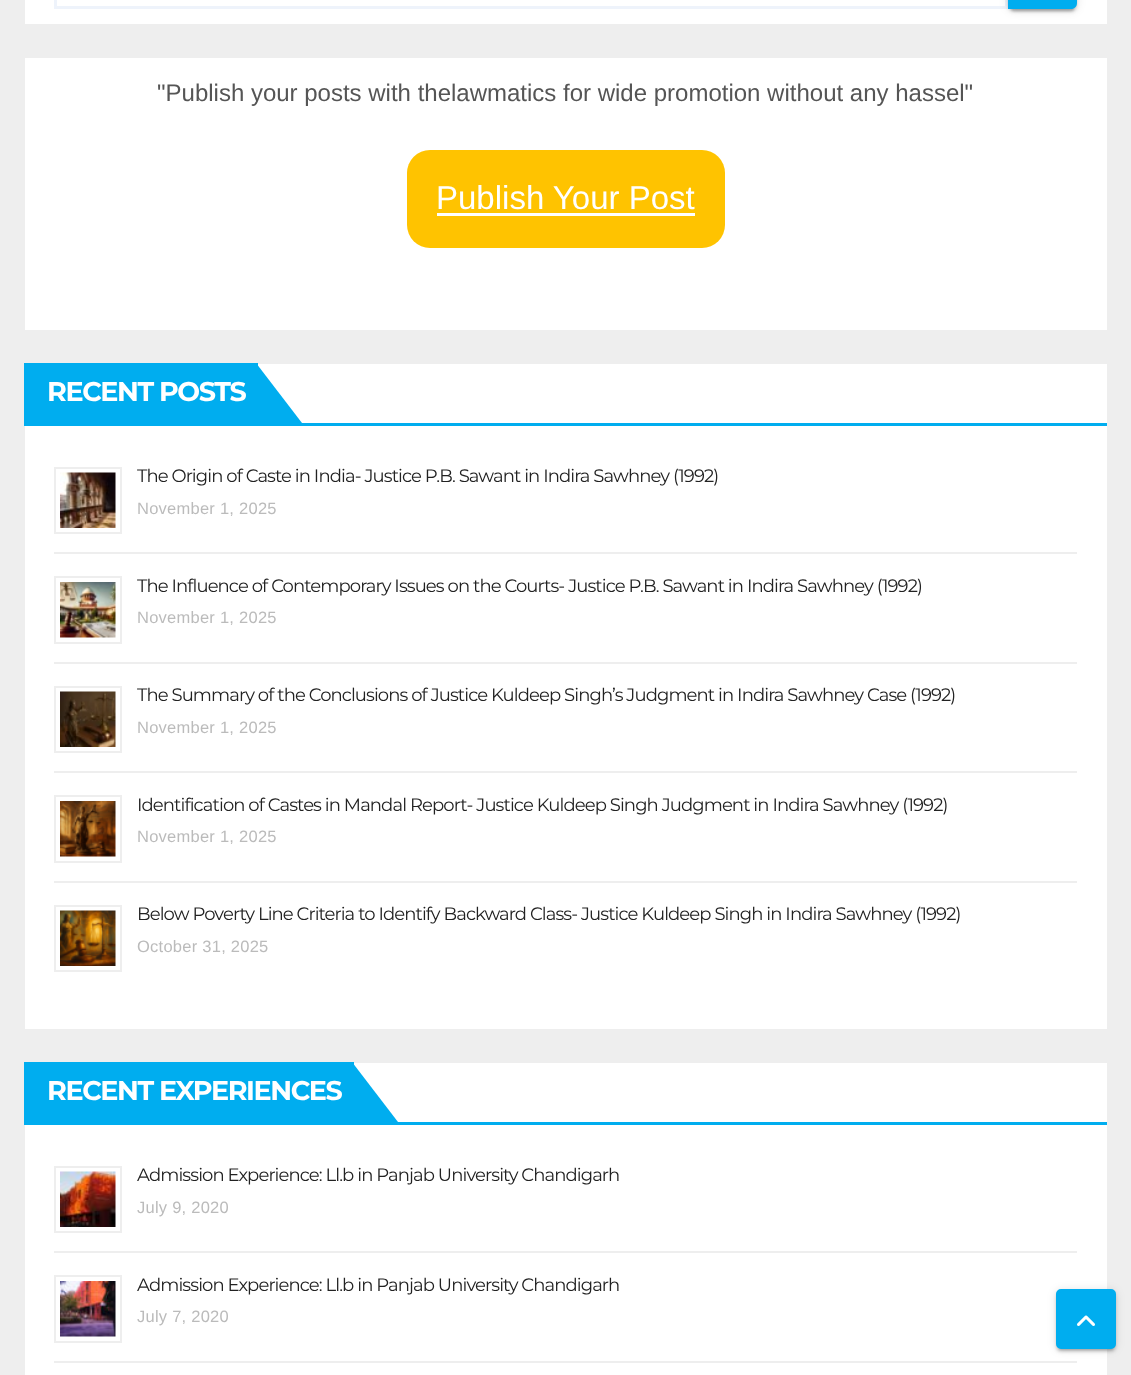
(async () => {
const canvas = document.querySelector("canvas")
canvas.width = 1131
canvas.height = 1375
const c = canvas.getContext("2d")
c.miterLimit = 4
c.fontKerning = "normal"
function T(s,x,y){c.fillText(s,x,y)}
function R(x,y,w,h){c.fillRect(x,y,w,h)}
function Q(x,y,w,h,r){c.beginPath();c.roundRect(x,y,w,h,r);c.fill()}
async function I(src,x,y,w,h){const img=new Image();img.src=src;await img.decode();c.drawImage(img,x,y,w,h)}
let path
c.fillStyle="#eee"
R(0,0,1131,1375)
c.fillStyle="#fff"
R(25,0,1082,24)
c.strokeStyle="#eef3fb"
c.lineWidth=3
c.strokeRect(55.5,-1.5,951,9)
c.fillStyle="#0000001f"
c.filter="blur(4px)"
c.beginPath()
c.roundRect(1008,-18,69,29,6)
c.fill()
c.filter="none"
c.fillStyle="#00000033"
c.filter="blur(1px)"
c.beginPath()
c.roundRect(1011,-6,63,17,3)
c.fill()
c.filter="none"
c.fillStyle="#00000024"
c.filter="blur(1.5px)"
c.beginPath()
c.roundRect(1008,-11,69,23,6)
c.fill()
c.filter="none"
c.fillStyle="#00adef"
path = new Path2D("M1008-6h63c3.5 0 6 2.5 6 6v3c0 3.5-2.5 6-6 6h-63z")
c.fill(path)
c.fillStyle="#fff"
R(25,58,1082,272)
c.font="24px Liberation Sans"
c.fillStyle="#555"
T("\"Publish your posts with thelawmatics for wide promotion without any hassel\"",157,101)
c.fillStyle="#ffc300"
Q(407,150,318,98,23)
c.font="33px Liberation Sans"
c.fillStyle="#fff"
T("Publish Your Post",436,209)
R(437,213,258,3)
R(25,364,1082,665)
c.fillStyle="#00adef"
R(24,423,1083,3)
R(24,363,234,60)
c.letterSpacing="-1.4px"
c.font="bold 27px Montserrat"
c.fillStyle="#fff"
T("RECENT POSTS",47,401)
c.fillStyle="#00adef"
path = new Path2D("M256 423v-60l46 60z")
c.fill(path)
c.fillStyle="#eee"
R(54,552,1023,2)
c.strokeStyle="#eee"
c.lineWidth=2
c.strokeRect(55,468,66,65)
await I("1.png",60,472,56,56)
c.letterSpacing="-0.9px"
c.font="18px Montserrat"
c.fillStyle="#222"
T("The Origin of Caste in India- Justice P.B. Sawant in Indira Sawhney (1992)",137,482)
c.letterSpacing="0.25px"
c.font="16.5px Liberation Sans"
c.fillStyle="#bbb"
T("November 1, 2025",137,514)
c.fillStyle="#eee"
R(54,662,1023,2)
c.strokeRect(55,577,66,66)
await I("2.png",60,582,56,56)
c.letterSpacing="-0.9px"
c.font="18px Montserrat"
c.fillStyle="#222"
T("The Influence of Contemporary Issues on the Courts- Justice P.B. Sawant in Indira Sawhney (1992)",137,592)
c.letterSpacing="0.25px"
c.font="16.5px Liberation Sans"
c.fillStyle="#bbb"
T("November 1, 2025",137,623)
c.fillStyle="#eee"
R(54,771,1023,2)
c.strokeRect(55,687,66,65)
await I("3.png",60,691,56,56)
c.letterSpacing="-0.9px"
c.font="18px Montserrat"
c.fillStyle="#222"
T("The Summary of the Conclusions of Justice Kuldeep Singh’s Judgment in Indira Sawhney Case (1992)",137,701)
c.letterSpacing="0.25px"
c.font="16.5px Liberation Sans"
c.fillStyle="#bbb"
T("November 1, 2025",137,733)
c.fillStyle="#eee"
R(54,881,1023,2)
c.strokeRect(55,796,66,66)
await I("4.png",60,801,56,56)
c.letterSpacing="-0.9px"
c.font="18px Montserrat"
c.fillStyle="#222"
T("Identification of Castes in Mandal Report- Justice Kuldeep Singh Judgment in Indira Sawhney (1992)",137,811)
c.letterSpacing="0.25px"
c.font="16.5px Liberation Sans"
c.fillStyle="#bbb"
T("November 1, 2025",137,842)
c.strokeRect(55,906,66,65)
await I("5.png",60,910,56,56)
c.letterSpacing="-0.9px"
c.font="18px Montserrat"
c.fillStyle="#222"
T("Below Poverty Line Criteria to Identify Backward Class- Justice Kuldeep Singh in Indira Sawhney (1992)",137,920)
c.letterSpacing="0.25px"
c.font="16.5px Liberation Sans"
c.fillStyle="#bbb"
T("October 31, 2025",137,952)
c.fillStyle="#fff"
R(25,1063,1082,312)
c.fillStyle="#00adef"
R(24,1122,1083,3)
R(24,1062,330,60)
c.letterSpacing="-1.4px"
c.font="bold 27px Montserrat"
c.fillStyle="#fff"
T("RECENT EXPERIENCES",47,1100)
c.fillStyle="#00adef"
path = new Path2D("M352 1122v-60l46 60z")
c.fill(path)
c.fillStyle="#eee"
R(54,1251,1023,2)
c.strokeRect(55,1167,66,65)
await I("6.png",60,1171,56,56)
c.letterSpacing="-0.9px"
c.font="18px Montserrat"
c.fillStyle="#222"
T("Admission Experience: Ll.b in Panjab University Chandigarh",137,1181)
c.letterSpacing="0.25px"
c.font="16.5px Liberation Sans"
c.fillStyle="#bbb"
T("July 9, 2020",137,1213)
c.fillStyle="#eee"
R(54,1361,1023,2)
c.strokeRect(55,1276,66,66)
await I("7.png",60,1281,56,56)
c.letterSpacing="-0.9px"
c.font="18px Montserrat"
c.fillStyle="#222"
T("Admission Experience: Ll.b in Panjab University Chandigarh",137,1291)
c.letterSpacing="0.25px"
c.font="16.5px Liberation Sans"
c.fillStyle="#bbb"
T("July 7, 2020",137,1322)
c.fillStyle="#0000001f"
c.filter="blur(4px)"
c.beginPath()
c.roundRect(1056,1290,60,60,5)
c.fill()
c.filter="none"
c.fillStyle="#00000033"
c.filter="blur(1px)"
c.beginPath()
c.roundRect(1059,1296,54,54,1.5)
c.fill()
c.filter="none"
c.fillStyle="#00000024"
c.filter="blur(1.5px)"
c.beginPath()
c.roundRect(1056,1292,60,60,5)
c.fill()
c.filter="none"
c.fillStyle="#00adef"
c.beginPath()
c.roundRect(1057.5,1290.5,57,57,3.5)
c.fill()
c.strokeStyle="#00adef"
c.lineWidth=3
c.stroke()
await I("8.png",1077,1315,18,11)
})()
